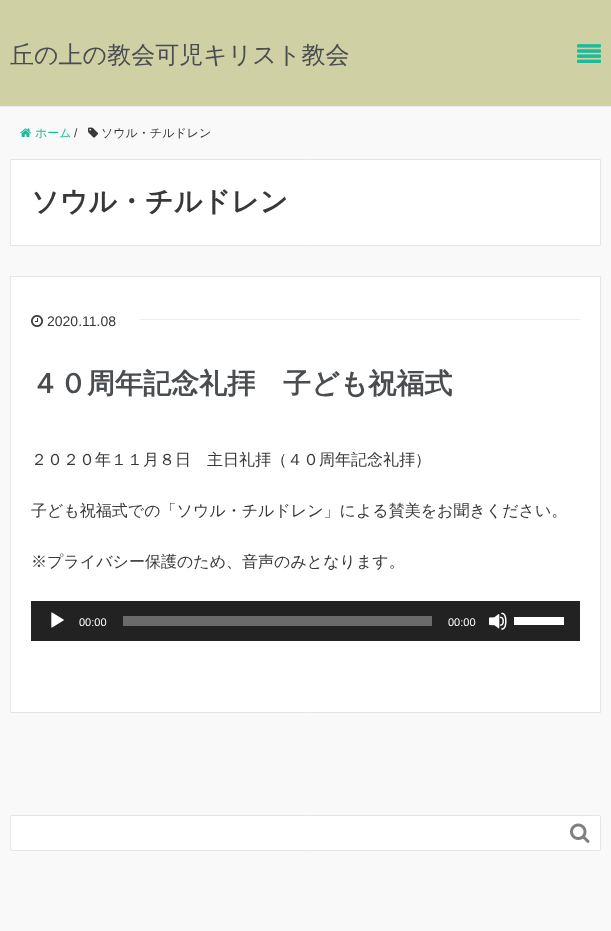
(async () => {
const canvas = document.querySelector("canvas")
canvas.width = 611
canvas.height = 931
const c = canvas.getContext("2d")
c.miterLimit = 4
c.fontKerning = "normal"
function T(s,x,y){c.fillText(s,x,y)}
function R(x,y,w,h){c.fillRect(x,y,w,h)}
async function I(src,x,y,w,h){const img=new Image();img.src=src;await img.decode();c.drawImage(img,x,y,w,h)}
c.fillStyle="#f9f9f9"
R(0,0,611,931)
c.fillStyle="#cfd1a4"
R(0,0,611,106)
c.fillStyle="#ededed"
R(0,106,611,1)
c.font="500 24px WenQuanYi Zen Hei"
c.fillStyle="#494d50"
T("丘の上の教会可児キリスト教会",10,63)
await I("1.png",577,44,24,19)
await I("2.png",20,128,11,9)
c.font="500 12px WenQuanYi Zen Hei"
c.fillStyle="#1abb9a"
T("ホーム",35,137)
c.font="12px Liberation Sans"
c.fillStyle="#383838"
T("/",74,137)
await I("3.png",88,127,11,11)
c.font="500 12px WenQuanYi Zen Hei"
T("ソウル・チルドレン",101,137)
c.fillStyle="#fff"
c.beginPath()
c.rect(10.5,159.5,590,86)
c.fill()
c.strokeStyle="#e5e5e5"
c.stroke()
c.font="bold 28px WenQuanYi Zen Hei"
c.fillStyle="#383838"
T("ソウル・チルドレン",31,211)
c.fillStyle="#fff"
c.beginPath()
c.rect(10.5,276.5,590,436)
c.fill()
c.stroke()
c.fillStyle="#ededed"
R(140,319,440,1)
await I("4.png",31,315,12,12)
c.font="14px Liberation Sans"
c.fillStyle="#383838"
T("2020.11.08",47,326)
c.font="bold 28px WenQuanYi Zen Hei"
c.fillStyle="#494d50"
T("４０周年記念礼拝　子ども祝福式",31,393)
c.font="500 16px WenQuanYi Zen Hei"
c.fillStyle="#383838"
T("２０２０年１１月８日　主日礼拝（４０周年記念礼拝）",31,465)
T("子ども祝福式での「ソウル・チルドレン」による賛美をお聞きください。",31,516)
T("※プライバシー保護のため、音声のみとなります。",31,567)
c.fillStyle="#222"
R(31,601,549,40)
await I("5.png",51,612,13,16)
c.font="11px Liberation Sans"
c.fillStyle="#fff"
T("00:00",79,626)
c.fillStyle="#6b6b6b"
R(123,616,309,10)
c.fillStyle="#fff"
T("00:00",448,626)
await I("6.png",489,612,18,18)
R(514,617,50,8)
c.beginPath()
c.roundRect(10.5,815.5,590,35,1.5)
c.fill()
c.stroke()
await I("7.png",570,823,20,20)
})()
